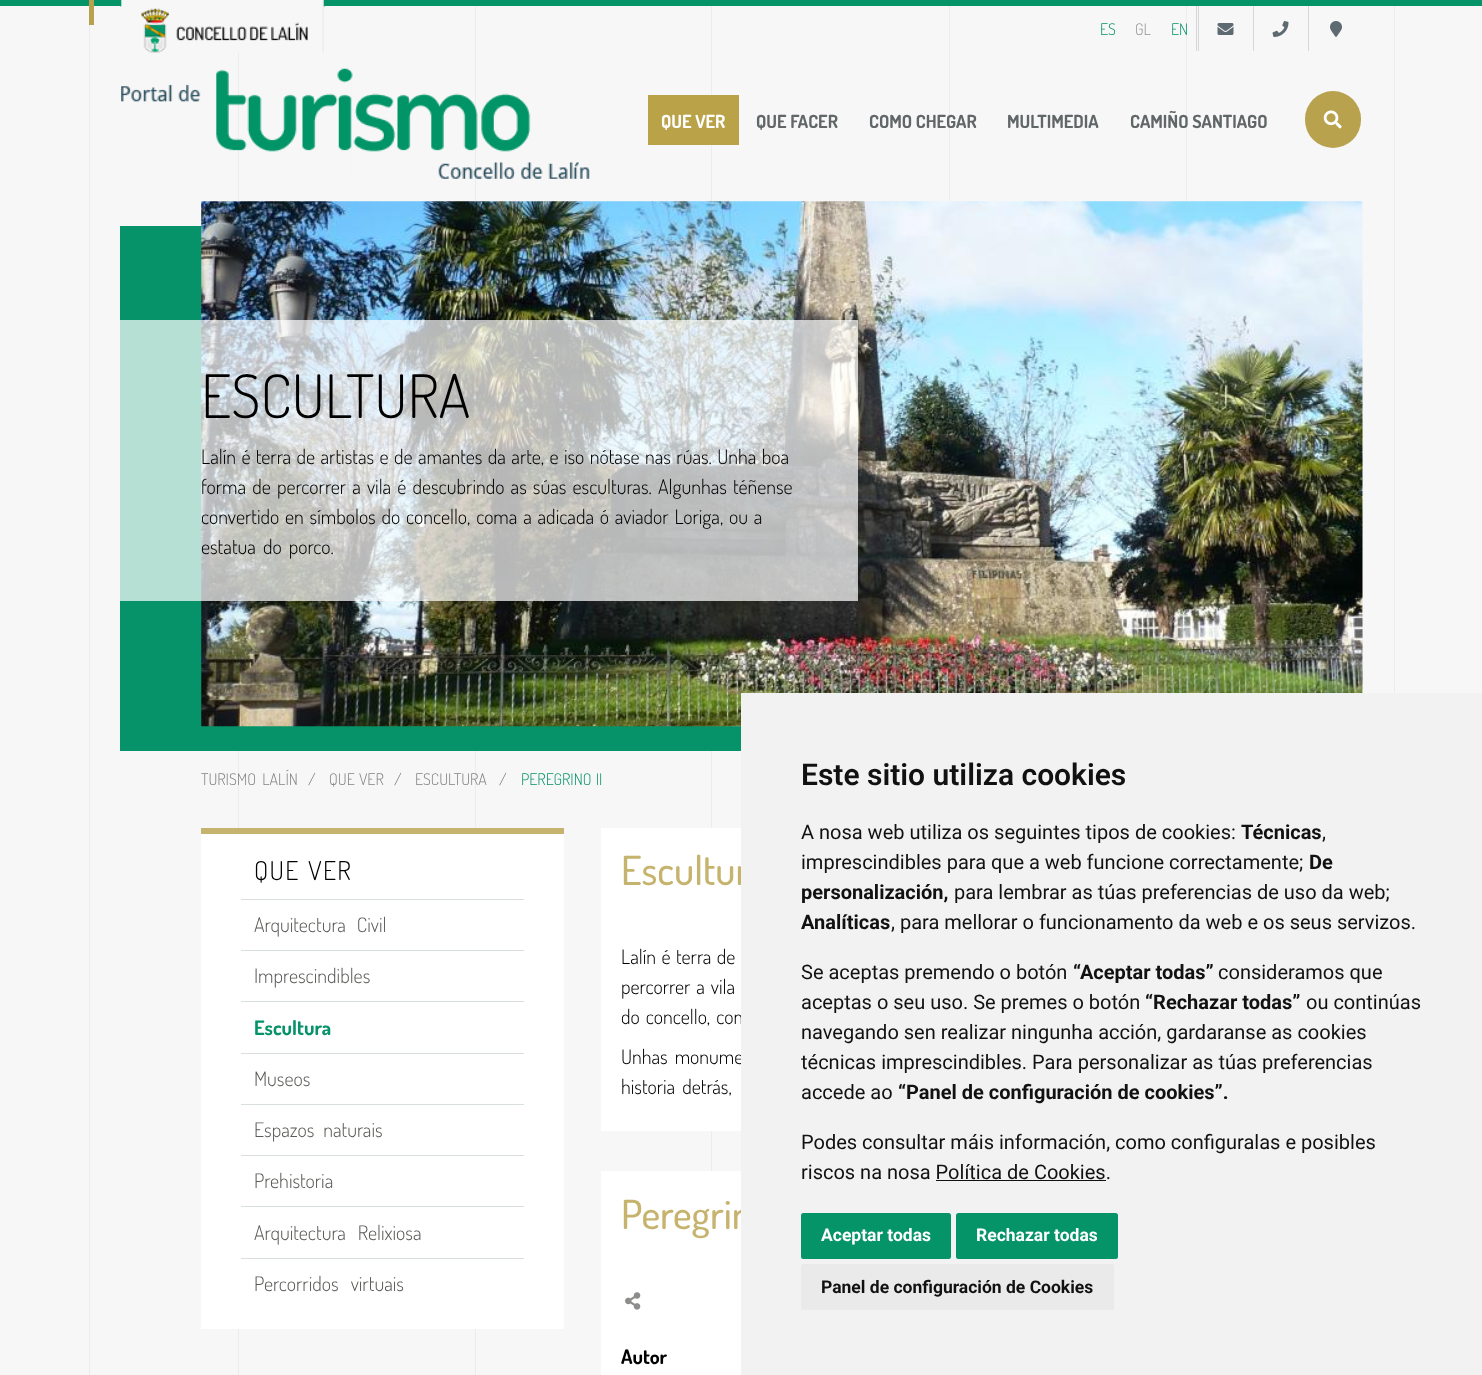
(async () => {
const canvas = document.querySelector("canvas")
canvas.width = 1482
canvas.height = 1375
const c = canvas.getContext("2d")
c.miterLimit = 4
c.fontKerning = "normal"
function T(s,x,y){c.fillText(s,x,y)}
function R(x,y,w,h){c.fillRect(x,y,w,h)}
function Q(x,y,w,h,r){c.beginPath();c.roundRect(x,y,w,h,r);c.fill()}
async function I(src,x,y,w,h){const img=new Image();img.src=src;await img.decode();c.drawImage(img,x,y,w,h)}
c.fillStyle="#f7f7f7"
R(0,0,1482,1375)
c.fillStyle="#ececec"
R(475,0,1,1375)
R(711,0,1,1171)
R(949,0,1,202)
R(1186,0,1,202)
R(1394,0,1,693)
c.fillStyle="#059368"
R(0,0,1482,6)
c.fillStyle="#b8a24d"
R(89,0,5,25)
c.fillStyle="#ececec"
R(89,25,1,1350)
R(238,52,1,1323)
await I("1.png",120,0,205,53)
c.fillStyle="#d6d6d6"
R(1196,6,1,45)
c.font="300 16px Dosis"
c.fillStyle="#069369"
T("ES",1100,35)
c.fillStyle="#949494"
T("GL",1135,35)
c.fillStyle="#069369"
T("EN",1171,35)
c.fillStyle="#d5d7da"
R(1198,6,1,45)
await I("2.png",1217,23,17,12)
R(1253,6,1,45)
await I("3.png",1272,21,17,16)
R(1308,6,1,45)
await I("4.png",1330,21,12,16)
await I("5.png",121,68,469,111)
c.fillStyle="#baa248"
R(648,95,91,50)
c.font="bold 18px Dosis"
c.fillStyle="#fff"
T("QUE VER",661,128)
c.fillStyle="#616768"
T("QUE FACER",756,128)
T("COMO CHEGAR",869,128)
T("MULTIMEDIA",1007,128)
T("CAMIÑO SANTIAGO",1130,128)
c.fillStyle="#b8a24d"
Q(1305,91,56,57,28)
await I("6.png",1323,110,19,19)
c.fillStyle="#069369"
R(120,226,621,525)
await I("7.png",201,201,1162,526)
c.fillStyle="#ffffffb5"
R(120,320,738,281)
c.font="300 60px Dosis"
c.fillStyle="#000"
T("ESCULTURA",201,418)
c.wordSpacing="1.4px"
c.font="300 20px Dosis"
T("Lalín é terra de artistas e de amantes da arte, e iso nótase nas rúas. Unha boa",201,464)
c.wordSpacing="2.1px"
T("forma de percorrer a vila é descubrindo as súas esculturas. Algunhas téñense",201,494)
c.wordSpacing="1.75px"
T("convertido en símbolos do concello, coma a adicada ó aviador Loriga, ou a",201,524)
c.wordSpacing="3px"
T("estatua do porco.",201,554)
c.font="300 16px Dosis"
c.fillStyle="#838383"
T("TURISMO LALÍN",201,785)
c.wordSpacing="0px"
c.fillStyle="#6c757d"
T("/",308,785)
c.wordSpacing="1px"
c.fillStyle="#838383"
T("QUE VER",329,785)
c.wordSpacing="0px"
c.fillStyle="#6c757d"
T("/",394,785)
c.fillStyle="#838383"
T("ESCULTURA",415,785)
c.fillStyle="#6c757d"
T("/",499,785)
c.wordSpacing="1px"
c.fillStyle="#069369"
T("PEREGRINO II",521,785)
c.fillStyle="#fff"
R(201,834,363,495)
c.fillStyle="#c6b36e"
R(201,828,363,6)
c.fillStyle="#d9dee1"
R(241,899,283,1)
c.letterSpacing="1.25px"
c.wordSpacing="2px"
c.font="300 26px Dosis"
c.fillStyle="#000"
T("QUE VER",254,880)
c.fillStyle="#d9dee1"
R(241,950,283,1)
c.letterSpacing="0px"
c.wordSpacing="7px"
c.font="300 20px Dosis"
c.fillStyle="#5a5a57"
T("Arquitectura Civil",254,932)
c.fillStyle="#d9dee1"
R(241,1001,283,1)
c.wordSpacing="0px"
c.fillStyle="#5a5a57"
T("Imprescindibles",254,983)
c.fillStyle="#d9dee1"
R(241,1053,283,1)
c.font="bold 20px Dosis"
c.fillStyle="#069369"
T("Escultura",254,1035)
c.fillStyle="#d9dee1"
R(241,1104,283,1)
c.font="300 20px Dosis"
c.fillStyle="#5a5a57"
T("Museos",254,1086)
c.fillStyle="#d9dee1"
R(241,1155,283,1)
c.wordSpacing="5px"
c.fillStyle="#5a5a57"
T("Espazos naturais",254,1137)
c.fillStyle="#d9dee1"
R(241,1206,283,1)
c.wordSpacing="0px"
c.fillStyle="#5a5a57"
T("Prehistoria",254,1188)
c.fillStyle="#d9dee1"
R(241,1258,283,1)
c.wordSpacing="8px"
c.fillStyle="#5a5a57"
T("Arquitectura Relixiosa",254,1240)
T("Percorridos virtuais",254,1291)
c.fillStyle="#fff"
R(601,828,140,303)
c.wordSpacing="0px"
c.font="500 40px Dosis"
c.fillStyle="#c6b36e"
T("Escultur",621,885)
c.wordSpacing="1.5px"
c.font="300 20px Dosis"
c.fillStyle="#000"
T("Lalín é terra de",621,964)
c.wordSpacing="2px"
T("percorrer a vila",621,994)
T("do concello, com",621,1024)
c.wordSpacing="3px"
T("Unhas monume",621,1064)
T("historia detrás,",621,1094)
c.fillStyle="#fff"
R(601,1171,140,204)
c.wordSpacing="0px"
c.font="500 40px Dosis"
c.fillStyle="#c6b36e"
T("Peregrin",621,1229)
await I("8.png",625,1292,16,18)
c.font="bold 20px Dosis"
c.fillStyle="#000"
T("Autor",621,1364)
c.fillStyle="#f2f2f2"
R(741,693,741,682)
c.font="600 30px Roboto"
c.fillStyle="#111"
T("Este sitio utiliza cookies",801,785)
c.font="20px Roboto"
T("A nosa web utiliza os seguintes tipos de cookies:",801,839)
c.font="bold 20px Roboto"
T("Técnicas",1241,839)
c.font="20px Roboto"
T(",",1322,839)
T("imprescindibles para que a web funcione correctamente;",801,869)
c.font="bold 20px Roboto"
T("De",1309,869)
T("personalización,",801,899)
c.font="20px Roboto"
T("para lembrar as túas preferencias de uso da web;",954,899)
c.font="bold 20px Roboto"
T("Analíticas",801,929)
c.font="20px Roboto"
T(", para mellorar o funcionamento da web e os seus servizos.",891,929)
T("Se aceptas premendo o botón",801,979)
c.font="bold 20px Roboto"
T("“Aceptar todas”",1073,979)
c.font="20px Roboto"
T("consideramos que",1218,979)
T("aceptas o seu uso. Se premes o botón",801,1009)
c.font="bold 20px Roboto"
T("“Rechazar todas”",1145,1009)
c.font="20px Roboto"
T("ou continúas",1306,1009)
T("navegando sen realizar ningunha acción, gardaranse as cookies",801,1039)
T("técnicas imprescindibles. Para personalizar as túas preferencias",801,1069)
T("accede ao",801,1099)
c.font="bold 20px Roboto"
T("“Panel de configuración de cookies”.",898,1099)
c.font="20px Roboto"
T("Podes consultar máis información, como configuralas e posibles",801,1149)
T("riscos na nosa Política de Cookies.",801,1179)
R(936,1180,170,1)
c.fillStyle="#059368"
Q(801,1213,150,46,2.5)
c.font="bold 17.5px Roboto"
c.fillStyle="#fff"
T("Aceptar todas",821,1241)
c.fillStyle="#059368"
Q(956,1213,162,46,2.5)
c.fillStyle="#fff"
T("Rechazar todas",976,1241)
c.fillStyle="#eaeaea"
Q(801,1264,313,46,2.5)
c.fillStyle="#111"
T("Panel de configuración de Cookies",821,1293)
})()
